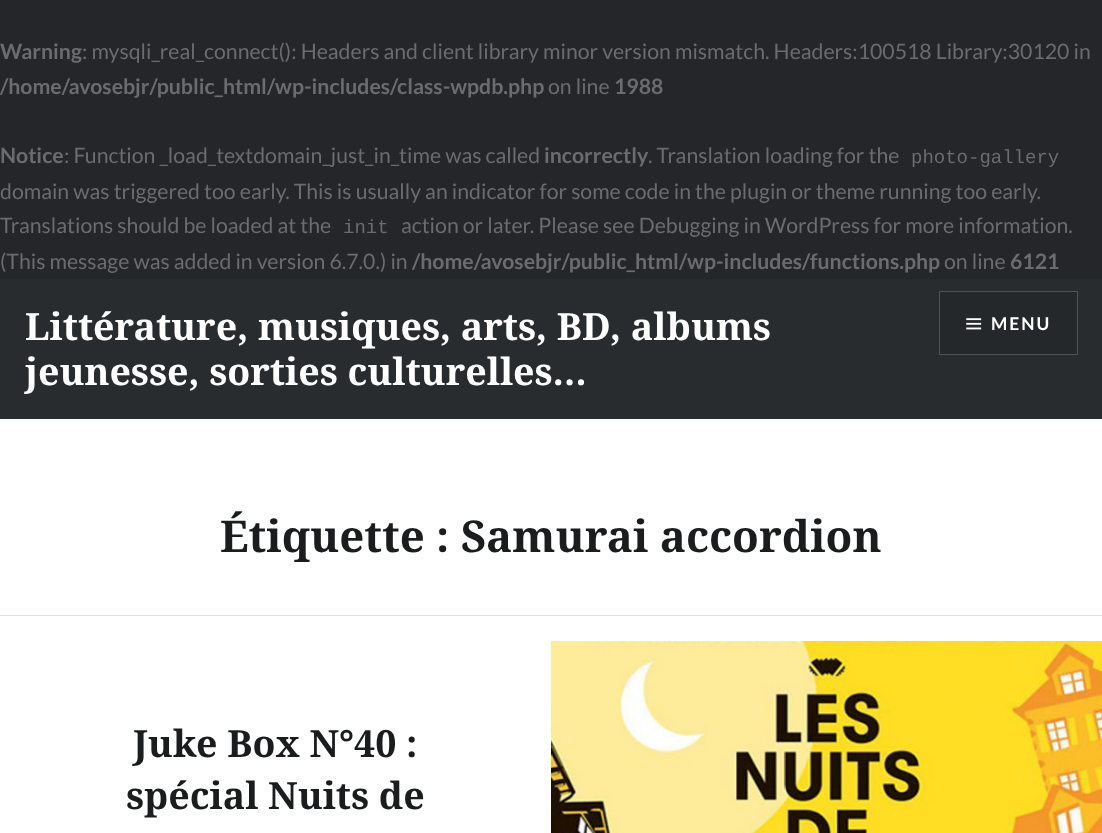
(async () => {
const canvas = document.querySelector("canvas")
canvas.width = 1102
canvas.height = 833
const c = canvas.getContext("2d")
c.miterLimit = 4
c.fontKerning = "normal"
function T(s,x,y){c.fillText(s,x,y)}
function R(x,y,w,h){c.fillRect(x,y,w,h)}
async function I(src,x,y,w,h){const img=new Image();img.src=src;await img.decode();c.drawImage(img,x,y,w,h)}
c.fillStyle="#242629"
R(0,0,1102,833)
c.font="bold 21.25px Lato"
c.fillStyle="#6a6c6e"
T("Warning",0,59)
c.font="21.25px Lato"
T(": mysqli_real_connect(): Headers and client library minor version mismatch. Headers:100518 Library:30120 in",82,59)
c.font="bold 21.25px Lato"
T("/home/avosebjr/public_html/wp-includes/class-wpdb.php",0,94)
c.font="21.25px Lato"
T("on line",548,94)
c.font="bold 21.25px Lato"
T("1988",614,94)
T("Notice",0,163)
c.font="21.25px Lato"
T(": Function _load_textdomain_just_in_time was called",64,163)
c.font="bold 21.25px Lato"
T("incorrectly",544,163)
c.font="21.25px Lato"
T(". Translation loading for the",648,163)
c.font="19px Liberation Mono"
T("photo-gallery",911,163)
c.font="21.25px Lato"
T("domain was triggered too early. This is usually an indicator for some code in the plugin or theme running too early.",0,199)
T("Translations should be loaded at the",0,233)
c.font="19px Liberation Mono"
T("init",343,233)
c.font="21.25px Lato"
T("action or later. Please see Debugging in WordPress for more information.",401,233)
T("(This message was added in version 6.7.0.) in",0,269)
c.font="bold 21.25px Lato"
T("/home/avosebjr/public_html/wp-includes/functions.php",412,269)
c.font="21.25px Lato"
T("on line",944,269)
c.font="bold 21.25px Lato"
T("6121",1010,269)
c.fillStyle="#fff"
R(0,419,1102,414)
c.fillStyle="#292c2f"
R(0,279,1102,140)
c.font="bold 37.5px Noto Serif"
c.fillStyle="#fff"
T("Littérature, musiques, arts, BD, albums",25,340)
T("jeunesse, sorties culturelles…",25,385)
c.fillStyle="#25282a"
c.beginPath()
c.rect(939.5,291.5,138,63)
c.fill()
c.strokeStyle="#515355"
c.stroke()
await I("1.png",966,318,16,12)
c.letterSpacing="2px"
c.font="bold 17.5px Lato"
c.fillStyle="#fff"
T("MENU",991,330)
c.fillStyle="#d9dfe5"
R(0,615,1102,1)
c.letterSpacing="0px"
c.font="bold 43.75px Noto Serif"
c.fillStyle="#1a1c1e"
T("Étiquette : Samurai accordion",220,552)
c.font="bold 37.5px Noto Serif"
T("Juke Box N°40 :",133,757)
T("spécial Nuits de",126,809)
await I("2.png",551,641,551,192)
})()
